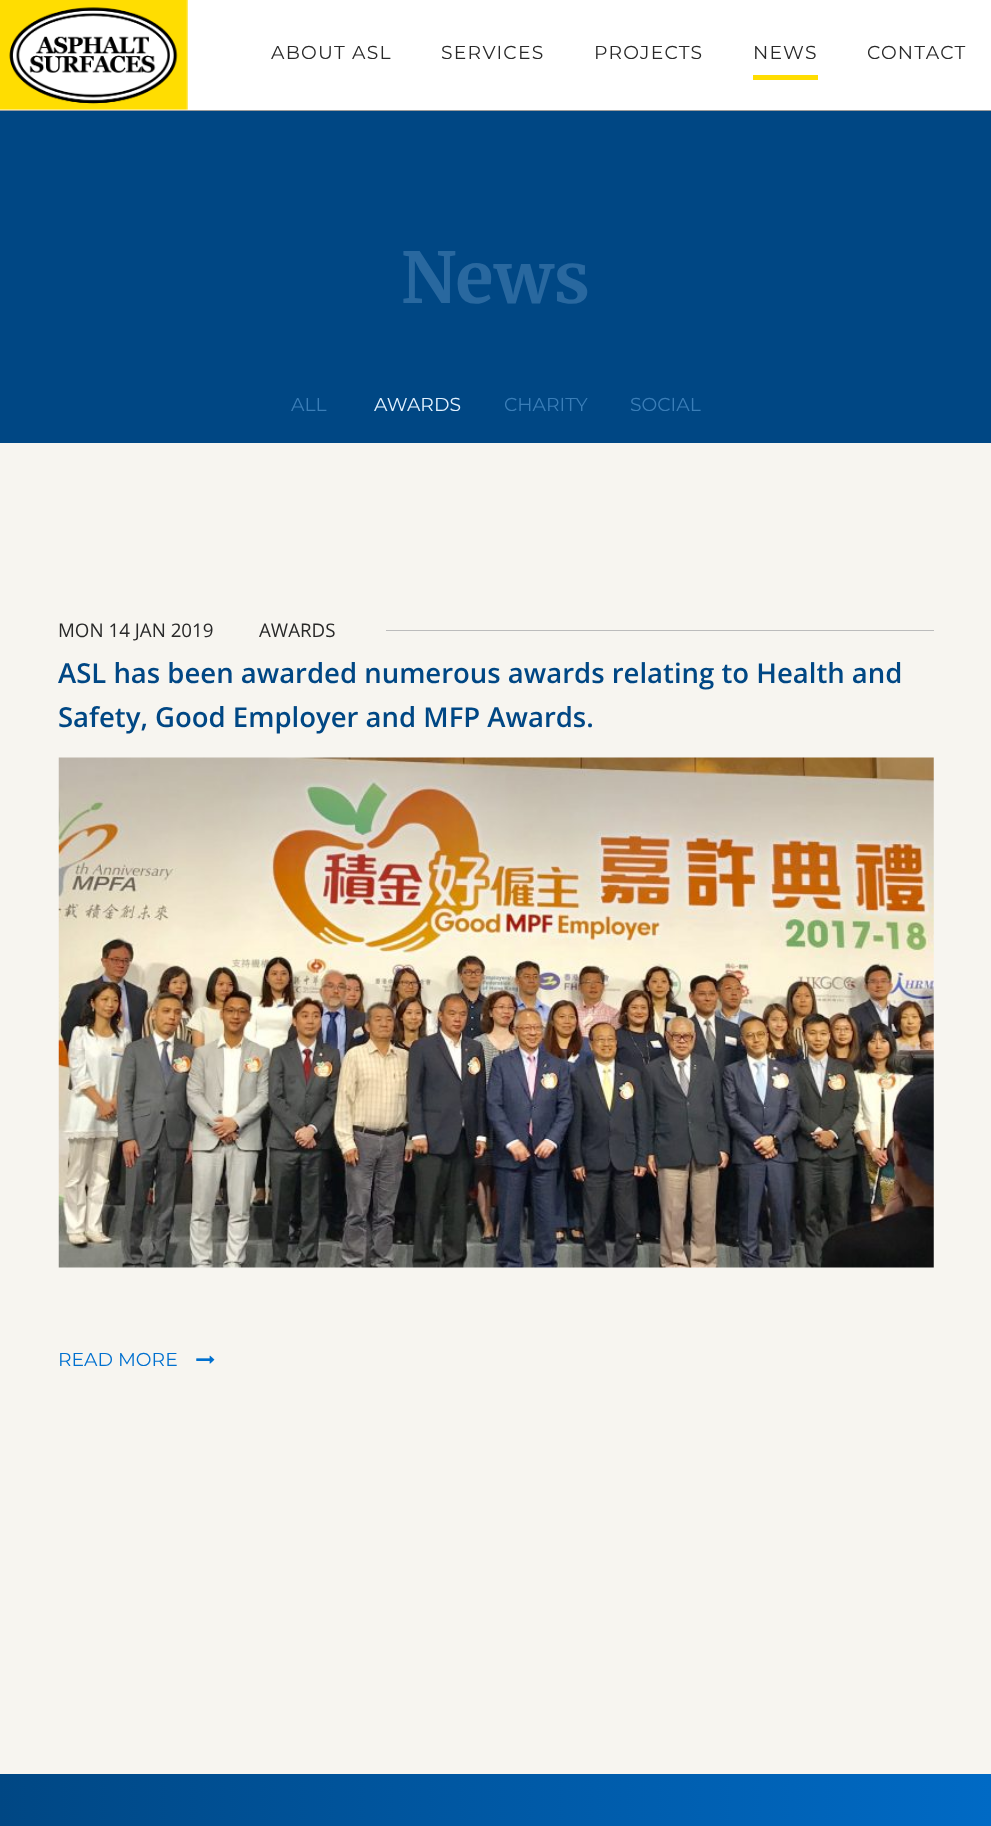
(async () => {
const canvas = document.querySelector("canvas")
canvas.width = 991
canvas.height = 1826
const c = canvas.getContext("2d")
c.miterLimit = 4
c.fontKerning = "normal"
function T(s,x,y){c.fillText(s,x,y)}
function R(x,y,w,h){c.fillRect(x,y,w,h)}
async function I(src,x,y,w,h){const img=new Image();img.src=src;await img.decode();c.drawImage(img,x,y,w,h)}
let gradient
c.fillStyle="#fff"
R(0,0,991,1826)
c.fillStyle="#9c9c9c"
R(0,110,991,1)
await I("1.png",0,0,188,110)
c.letterSpacing="1.25px"
c.font="18.75px Montserrat"
c.fillStyle="#292929"
T("ABOUT ASL",271,59)
T("SERVICES",441,59)
T("PROJECTS",594,59)
T("NEWS",753,59)
c.fillStyle="#ffdd01"
R(753,75,65,5)
c.fillStyle="#292929"
T("CONTACT",867,59)
c.fillStyle="#f7f5f0"
R(0,443,991,1331)
c.fillStyle="#004784"
R(0,111,991,332)
c.letterSpacing="0px"
c.font="bold 70px Merriweather"
c.fillStyle="#29689f"
T("News",401,303)
c.font="18.75px Montserrat"
c.fillStyle="#3a7eb8"
T("ALL",291,411)
c.fillStyle="#e3f2ff"
T("AWARDS",374,411)
c.fillStyle="#3a7eb8"
T("CHARITY",504,411)
T("SOCIAL",630,411)
c.font="18.75px Open Sans"
c.fillStyle="#292929"
T("MON 14 JAN 2019",58,637)
T("AWARDS",259,637)
c.fillStyle="#bcbcbc"
R(386,630,548,1)
c.font="600 27.5px Open Sans"
c.fillStyle="#004784"
T("ASL has been awarded numerous awards relating to Health and",58,683)
T("Safety, Good Employer and MFP Awards.",58,727)
await I("2.png",58,757,876,511)
c.font="18.75px Montserrat"
c.fillStyle="#0070cf"
T("READ MORE",58,1366)
await I("3.png",196,1355,19,9)
gradient = c.createLinearGradient(991,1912,0,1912)
gradient.addColorStop(0,"#006ac5")
gradient.addColorStop(1,"#004784")
c.fillStyle = gradient
R(0,1774,991,52)
})()
